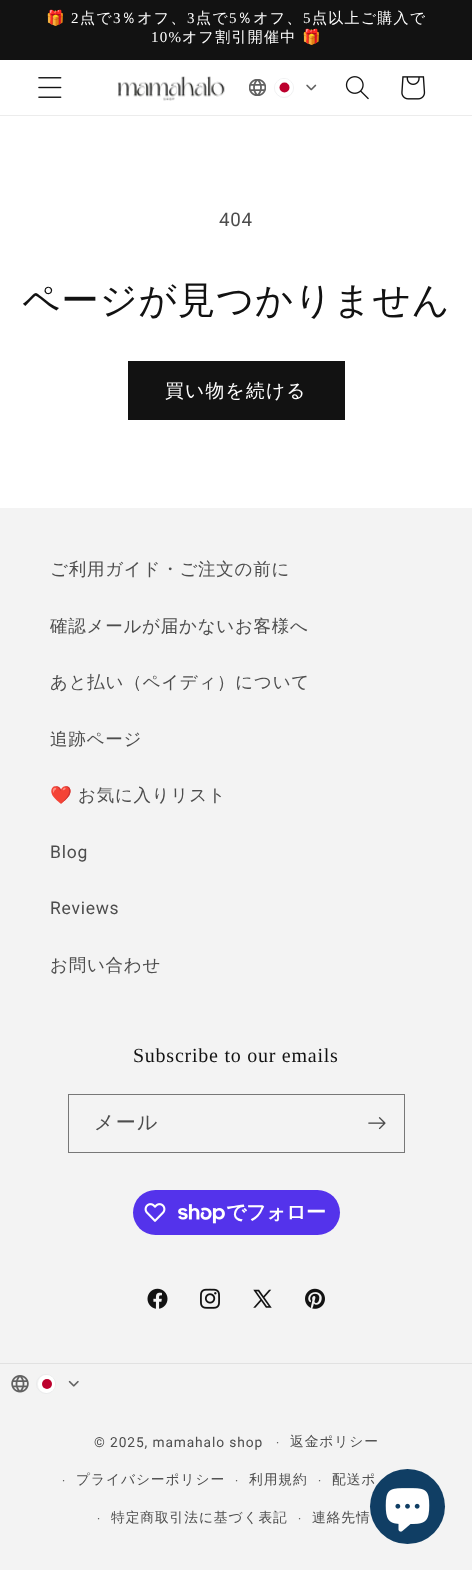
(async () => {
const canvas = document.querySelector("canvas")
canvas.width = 472
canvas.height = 1570
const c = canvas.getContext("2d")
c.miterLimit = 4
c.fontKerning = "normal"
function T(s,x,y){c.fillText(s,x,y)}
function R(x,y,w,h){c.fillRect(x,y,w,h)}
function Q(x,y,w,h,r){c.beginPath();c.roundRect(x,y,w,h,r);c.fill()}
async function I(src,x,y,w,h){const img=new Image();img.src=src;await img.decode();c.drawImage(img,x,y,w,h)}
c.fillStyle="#fff"
R(0,0,472,1570)
c.fillStyle="#121212"
R(0,0,472,60)
c.letterSpacing="1.25px"
c.font="15px Noto Color Emoji"
c.fillStyle="#fff"
T("🎁",46,23)
c.font="15px Liberation Serif"
T("2",71,23)
c.font="500 15px WenQuanYi Zen Hei"
T("点で",80,23)
c.font="15px Liberation Serif"
T("3",113,23)
c.font="500 15px WenQuanYi Zen Hei"
T("％オフ、",121,23)
c.font="15px Liberation Serif"
T("3",187,23)
c.font="500 15px WenQuanYi Zen Hei"
T("点で",196,23)
c.font="15px Liberation Serif"
T("5",229,23)
c.font="500 15px WenQuanYi Zen Hei"
T("％オフ、",237,23)
c.font="15px Liberation Serif"
T("5",303,23)
c.font="500 15px WenQuanYi Zen Hei"
T("点以上ご購入で",312,23)
c.font="15px Liberation Serif"
T("10%",151,42)
c.font="500 15px WenQuanYi Zen Hei"
T("オフ割引開催中",182,42)
c.font="15px Noto Color Emoji"
T("🎁",302,42)
c.fillStyle="#ececec"
R(0,115,472,1)
await I("1.png",38,77,24,21)
await I("2.png",117,76,108,25)
await I("3.png",249,79,17,17)
c.beginPath()
c.arc(284,88,9.5,0,7)
c.strokeStyle="#f0f1f2"
c.stroke()
c.fillStyle="#fff"
Q(275,79,18,17,8.5)
c.fillStyle="#bc002d"
c.beginPath()
c.arc(284.5,87.5,5,0,7)
c.fill()
await I("4.png",306,84,11,7)
await I("5.png",345,76,24,24)
await I("6.png",401,76,25,24)
c.letterSpacing="0.75px"
c.font="18.75px Roboto"
c.fillStyle="#4d4d4d"
T("404",219,226)
c.font="500 37.5px WenQuanYi Zen Hei"
c.fillStyle="#121212"
T("ページが見つかりません",22,313)
R(128,361,217,59)
c.letterSpacing="1.25px"
c.font="500 18.75px WenQuanYi Zen Hei"
c.fillStyle="#fff"
T("買い物を続ける",165,397)
c.fillStyle="#f3f3f3"
R(0,508,472,1062)
c.letterSpacing="0.75px"
c.font="500 17.5px WenQuanYi Zen Hei"
c.fillStyle="#4d4d4d"
T("ご利用ガイド・ご注文の前に",50,575)
T("確認メールが届かないお客様へ",50,632)
T("あと払い（ペイディ）について",50,688)
T("追跡ページ",50,745)
c.font="17.5px Noto Color Emoji"
T("❤️",50,801)
c.font="500 17.5px WenQuanYi Zen Hei"
T("お気に入りリスト",78,801)
c.font="17.5px Roboto"
T("Blog",50,858)
T("Reviews",50,914)
c.font="500 17.5px WenQuanYi Zen Hei"
T("お問い合わせ",50,971)
c.font="20px Liberation Serif"
c.fillStyle="#121212"
T("Subscribe to our emails",133,1062)
c.strokeStyle="#777"
c.strokeRect(68.5,1094.5,336,58)
c.letterSpacing="1.25px"
c.font="500 20px WenQuanYi Zen Hei"
c.fillStyle="#4d4d4d"
T("メール",94,1129)
await I("7.png",368,1117,18,13)
c.fillStyle="#5433eb"
Q(133,1190,207,45,22.5)
await I("8.png",144,1203,22,19)
await I("9.png",178,1204,47,20)
c.letterSpacing="-0.5px"
c.font="bold 20px WenQuanYi Zen Hei"
c.fillStyle="#fff"
T("でフォロー",226,1219)
await I("10.png",147,1288,21,21)
await I("11.png",200,1288,20,21)
await I("12.png",253,1289,19,19)
await I("13.png",305,1288,20,21)
c.fillStyle="#e1e1e1"
R(0,1363,472,1)
await I("14.png",11,1375,18,18)
c.beginPath()
c.arc(46,1384,9.5,0,7)
c.strokeStyle="#eaebec"
c.stroke()
c.fillStyle="#fff"
Q(38,1375,17,18,8.5)
c.fillStyle="#bc002d"
c.beginPath()
c.arc(47,1384,5,0,7)
c.fill()
await I("15.png",68,1380,11,7)
c.letterSpacing="0.9px"
c.font="12px Roboto"
c.fillStyle="#4d4d4d"
T("·",276,1447)
c.font="500 13.75px WenQuanYi Zen Hei"
T("返金ポリシー",290,1446)
c.font="12px Roboto"
T("·",62,1485)
c.font="500 13.75px WenQuanYi Zen Hei"
T("プライバシーポリシー",76,1484)
c.font="12px Roboto"
T("·",235,1485)
c.font="500 13.75px WenQuanYi Zen Hei"
T("利用規約",249,1484)
c.font="12px Roboto"
T("·",318,1485)
c.font="500 13.75px WenQuanYi Zen Hei"
T("配送ポ",332,1484)
c.font="12px Roboto"
T("·",97,1523)
c.font="500 13.75px WenQuanYi Zen Hei"
T("特定商取引法に基づく表記",111,1522)
c.font="12px Roboto"
T("·",298,1523)
c.font="500 13.75px WenQuanYi Zen Hei"
T("連絡先情",312,1522)
c.font="13.75px Roboto"
T("© 2025, mamahalo shop",94,1447)
c.fillStyle="#103e64"
c.beginPath()
c.arc(407.5,1506.5,37.5,0,7)
c.fill()
await I("16.png",385,1488,45,44)
})()
